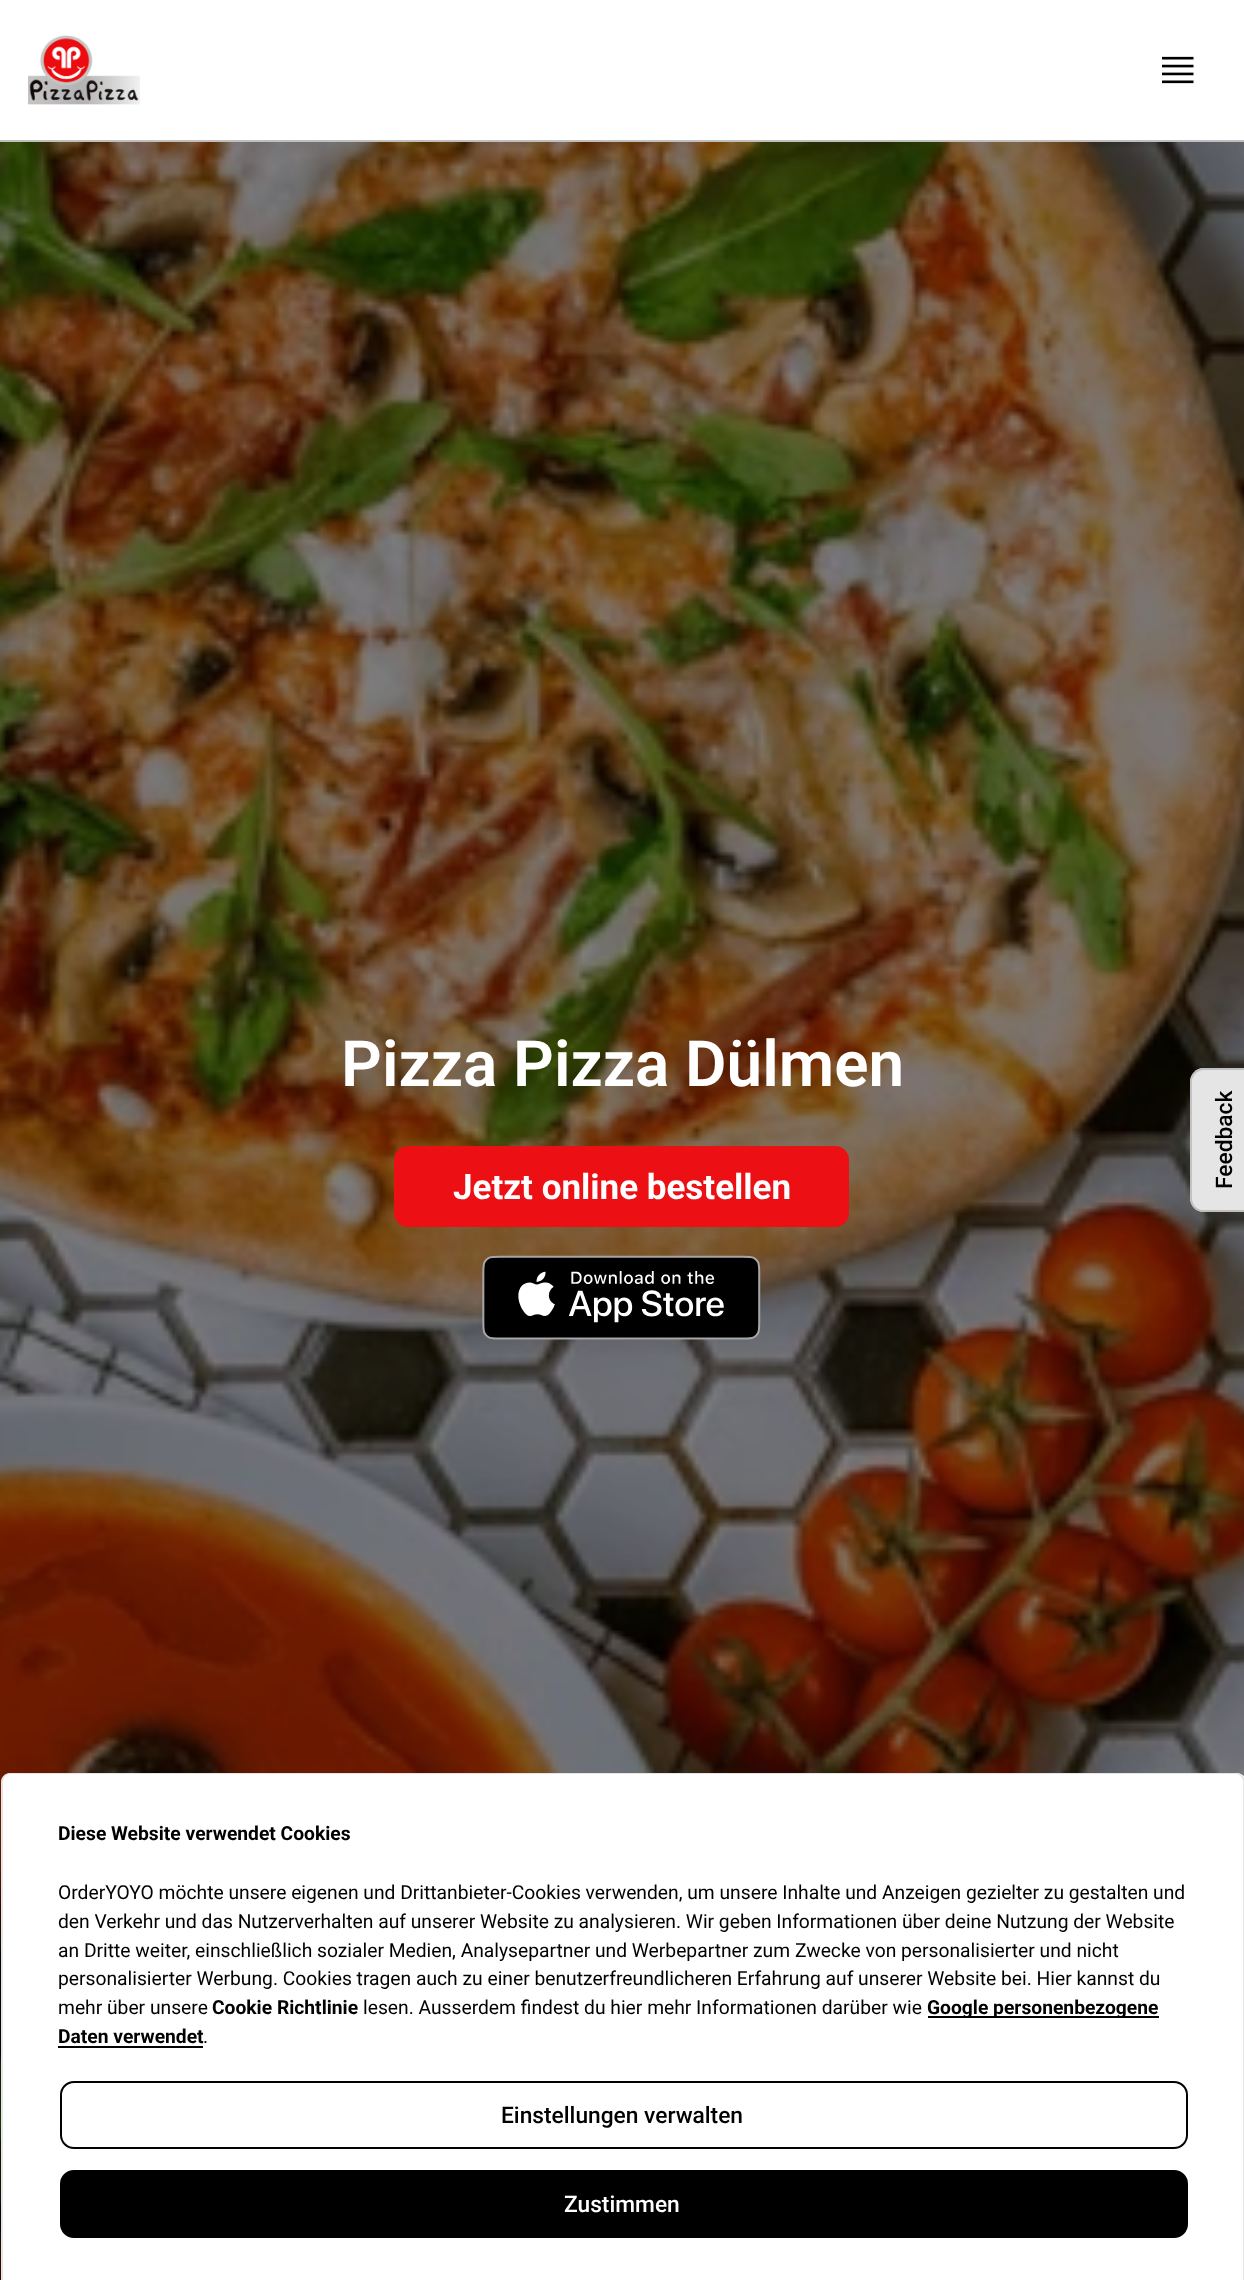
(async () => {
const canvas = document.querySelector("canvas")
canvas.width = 1244
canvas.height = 2280
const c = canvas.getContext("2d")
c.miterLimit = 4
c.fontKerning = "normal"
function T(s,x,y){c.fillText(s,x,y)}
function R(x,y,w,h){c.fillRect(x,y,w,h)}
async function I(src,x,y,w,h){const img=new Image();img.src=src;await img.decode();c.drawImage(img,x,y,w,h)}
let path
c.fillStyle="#fff"
R(0,0,1244,2280)
c.fillStyle="#bfbfbf"
R(0,140,1244,2)
await I("1.png",28,35,112,70)
await I("2.png",1162,56,32,28)
await I("3.png",0,142,1244,2138)
c.font="600 63.75px Roboto"
c.fillStyle="#fff"
T("Pizza Pizza Dülmen",341,1086)
c.fillStyle="#ec0f13"
c.beginPath()
c.roundRect(395,1147,453,79,13)
c.fill()
c.strokeStyle="#ec0f13"
c.lineWidth=2
c.stroke()
c.font="bold 35px Roboto"
c.fillStyle="#fff"
T("Jetzt online bestellen",453,1199)
await I("4.png",482,1255,279,85)
c.fillStyle="#00000066"
R(0,2140,1,140)
c.fillStyle="#0000003d"
c.filter="blur(30px)"
c.beginPath()
c.roundRect(1187,1064,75,152,18)
c.fill()
c.filter="none"
c.fillStyle="#e5e5e5"
path = new Path2D("M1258 1212h-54c-8 0-14-6-14-14v-116c0-8 6-14 14-14h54z")
c.fill(path)
path = new Path2D("M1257.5 1211h-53.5c-7 0-13-5.5-13-13v-116c0-7 6-13 13-13h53.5z")
c.strokeStyle="#bfbfbf"
c.lineWidth=1.8
c.stroke(path)
c.font="500 22.75px Roboto"
c.fillStyle="#000"
c.save()
c.translate(1232,1189)
c.rotate(-90 * Math.PI / 180)
c.fillText("Feedback",0,0)
c.restore()
c.fillStyle="#fff"
path = new Path2D("M11 1773h1226c5 0 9 4 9 9v498h-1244v-498c0-5 4-9 9-9z")
c.fill(path)
c.fillStyle="#e5e5e5"
path = new Path2D("M10 1773h1226c5 0 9 4 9 9v498h-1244v-498c0-5 4-9 9-9zm0 1h1226c4 0 7 4 7 8v498h-1240v-498c0-4 3-8 7-8z")
c.fill(path,"evenodd")
c.font="bold 19.25px Roboto"
c.fillStyle="#000"
T("Diese Website verwendet Cookies",58,1840)
c.font="19.25px Roboto"
T("OrderYOYO möchte unsere eigenen und Drittanbieter-Cookies verwenden, um unsere Inhalte und Anzeigen gezielter zu gestalten und",58,1899)
T("den Verkehr und das Nutzerverhalten auf unserer Website zu analysieren. Wir geben Informationen über deine Nutzung der Website",58,1928)
T("an Dritte weiter, einschließlich sozialer Medien, Analysepartner und Werbepartner zum Zwecke von personalisierter und nicht",58,1957)
T("personalisierter Werbung. Cookies tragen auch zu einer benutzerfreundlicheren Erfahrung auf unserer Website bei. Hier kannst du",58,1985)
T("mehr über unsere",58,2014)
c.font="bold 19.25px Roboto"
T("Cookie Richtlinie",212,2014)
c.font="19.25px Roboto"
T("lesen. Ausserdem findest du hier mehr Informationen darüber wie",363,2014)
R(928,2016,231,2)
c.font="bold 19.25px Roboto"
T("Google personenbezogene",927,2014)
T("Daten verwendet",58,2043)
R(58,2046,145,2)
c.font="19.25px Roboto"
T(".",203,2043)
c.beginPath()
c.roundRect(61,2082,1126,66,13)
c.strokeStyle="#000"
c.lineWidth=2
c.stroke()
c.font="500 22.75px Roboto"
T("Einstellungen verwalten",501,2123)
c.beginPath()
c.roundRect(61,2171,1126,66,13)
c.fill()
c.stroke()
c.fillStyle="#fff"
T("Zustimmen",564,2212)
})()
